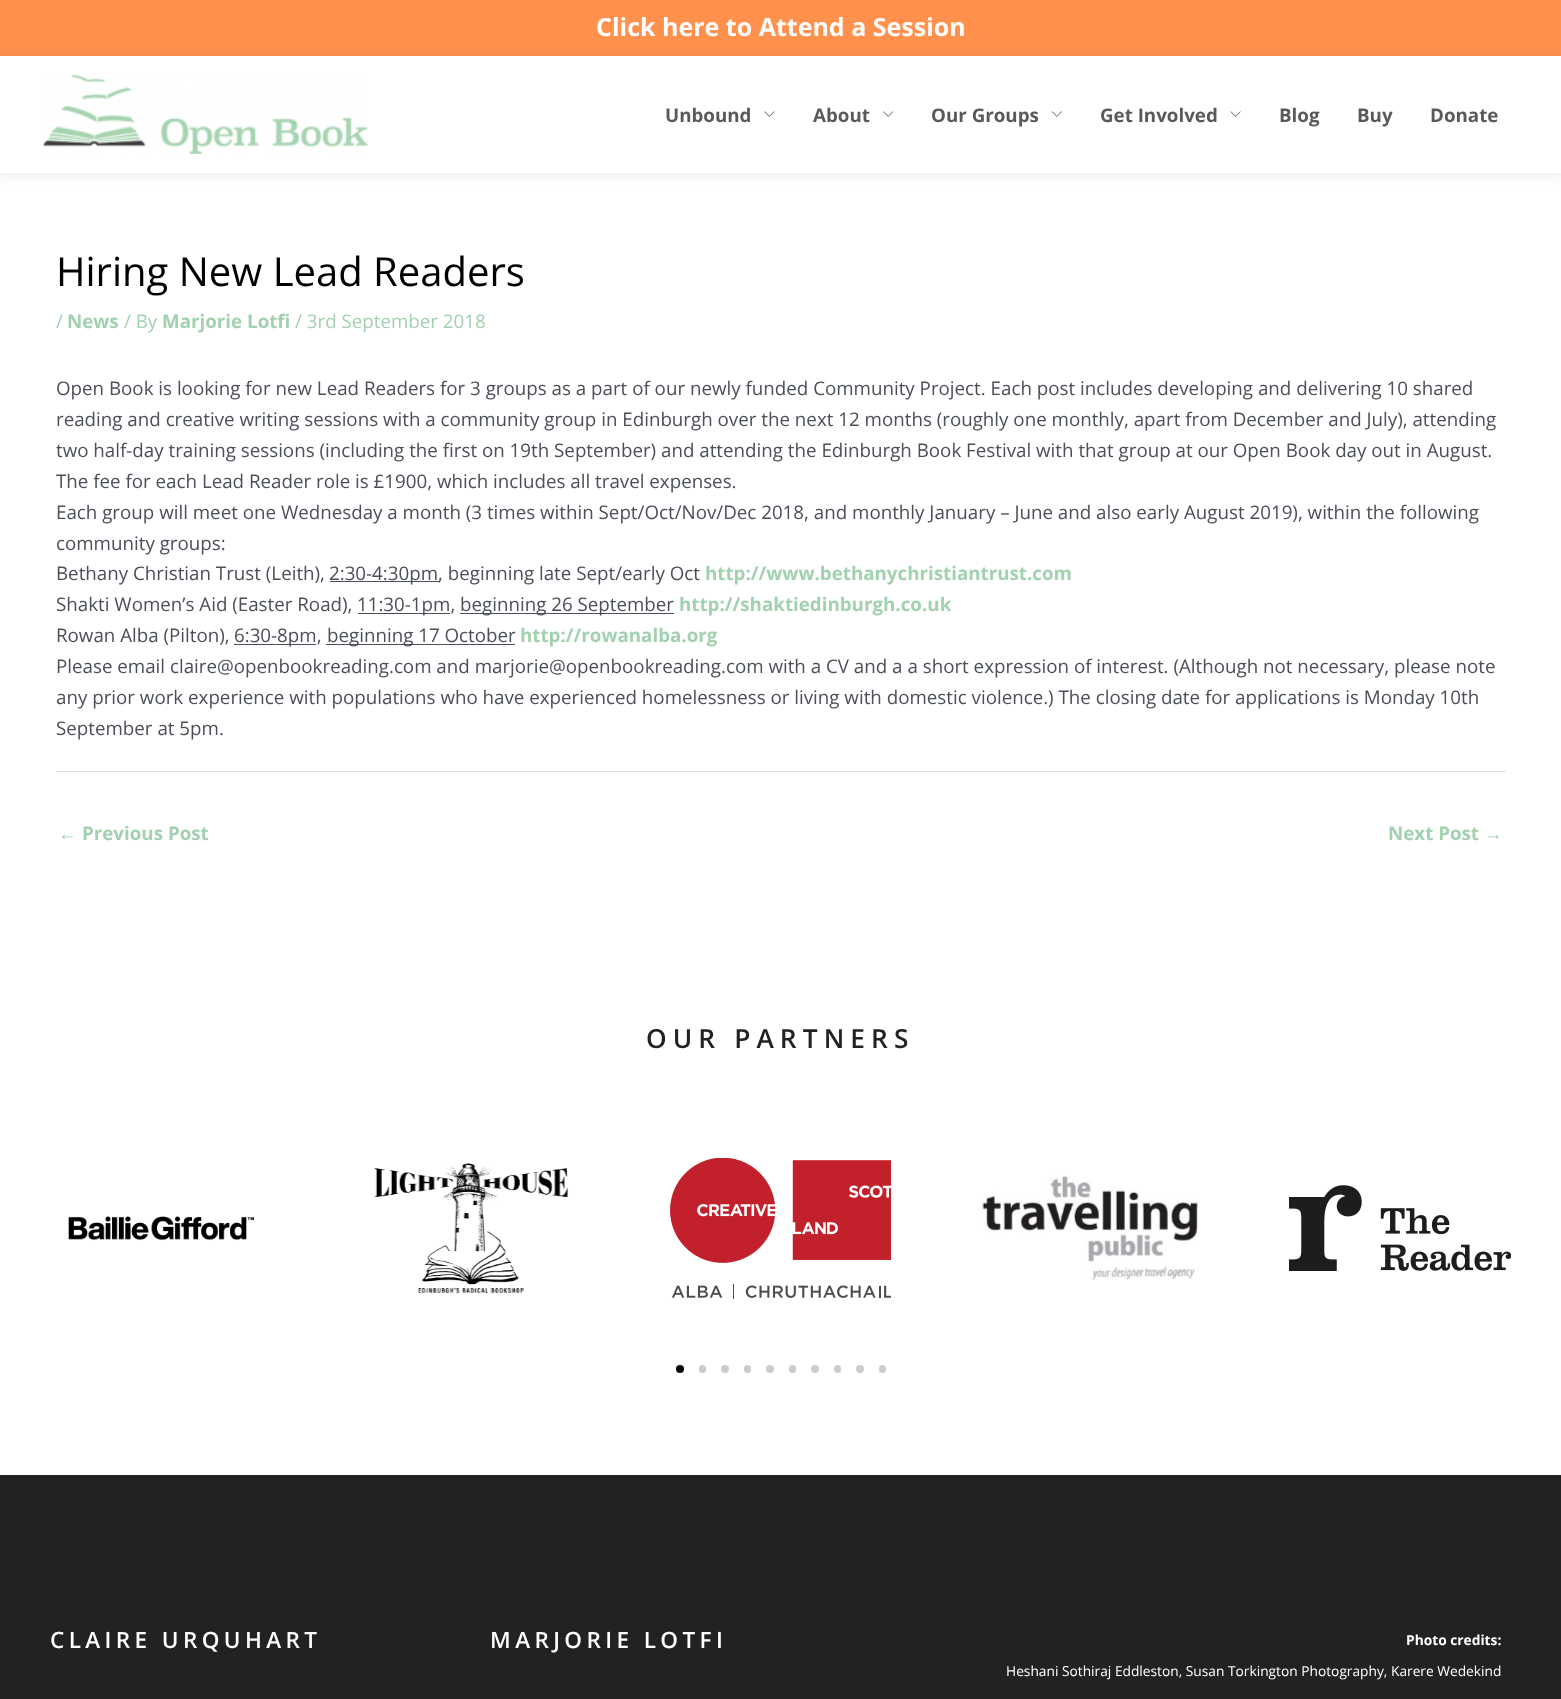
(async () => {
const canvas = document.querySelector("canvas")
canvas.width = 1561
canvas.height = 1699
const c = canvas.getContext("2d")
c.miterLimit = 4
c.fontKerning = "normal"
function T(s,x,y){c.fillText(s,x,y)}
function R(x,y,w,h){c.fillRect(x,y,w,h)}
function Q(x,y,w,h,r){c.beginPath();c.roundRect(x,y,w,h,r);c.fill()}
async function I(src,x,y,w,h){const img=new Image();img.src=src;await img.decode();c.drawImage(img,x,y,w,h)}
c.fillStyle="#fff"
R(0,0,1561,1699)
c.fillStyle="#ff914d"
R(0,0,1561,56)
c.font="bold 25px Open Sans"
c.fillStyle="#fff"
T("Click here to Attend a Session",596,36)
c.fillStyle="#0000000d"
c.filter="blur(5px)"
c.beginPath()
c.rect(-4,54,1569,124)
c.fill()
c.filter="none"
c.fillStyle="#fff"
R(0,56,1561,117)
await I("1.png",43,75,325,79)
c.font="bold 18.75px Open Sans"
c.fillStyle="#5b5958"
T("Unbound",665,122)
await I("2.png",764,111,11,6)
T("About",813,122)
await I("3.png",883,111,11,6)
T("Our Groups",931,122)
await I("4.png",1051,111,11,6)
T("Get Involved",1100,122)
await I("5.png",1230,111,11,6)
T("Blog",1279,122)
T("Buy",1357,122)
T("Donate",1430,122)
c.font="40px Open Sans"
c.fillStyle="#000"
T("Hiring New Lead Readers",56,286)
c.font="18.75px Open Sans"
c.fillStyle="#a1d1ae"
T("/",56,328)
c.font="bold 18.75px Open Sans"
T("News",67,328)
c.font="18.75px Open Sans"
T("/ By",124,328)
c.font="bold 18.75px Open Sans"
T("Marjorie Lotfi",162,328)
c.font="18.75px Open Sans"
T("/ 3rd September 2018",295,328)
c.fillStyle="#4b4f58"
T("Open Book is looking for new Lead Readers for 3 groups as a part of our newly funded Community Project. Each post includes developing and delivering 10 shared",56,395)
T("reading and creative writing sessions with a community group in Edinburgh over the next 12 months (roughly one monthly, apart from December and July), attending",56,426)
T("two half-day training sessions (including the first on 19th September) and attending the Edinburgh Book Festival with that group at our Open Book day out in August.",56,457)
T("The fee for each Lead Reader role is £1900, which includes all travel expenses.",56,488)
T("Each group will meet one Wednesday a month (3 times within Sept/Oct/Nov/Dec 2018, and monthly January – June and also early August 2019), within the following",56,519)
T("community groups:",56,550)
T("Bethany Christian Trust (Leith),",56,580)
R(330,581,109,1)
T("2:30-4:30pm, beginning late Sept/early Oct",329,580)
c.font="bold 18.75px Open Sans"
c.fillStyle="#a1d1ae"
T("http://www.bethanychristiantrust.com",705,580)
c.font="18.75px Open Sans"
c.fillStyle="#4b4f58"
T("Shakti Women’s Aid (Easter Road),",56,611)
R(358,613,92,1)
T("11:30-1pm,",357,611)
R(460,613,214,1)
T("beginning 26 September",460,611)
c.font="bold 18.75px Open Sans"
c.fillStyle="#a1d1ae"
T("http://shaktiedinburgh.co.uk",679,611)
c.font="18.75px Open Sans"
c.fillStyle="#4b4f58"
T("Rowan Alba (Pilton),",56,642)
R(234,644,82,1)
T("6:30-8pm,",234,642)
R(326,644,189,1)
T("beginning 17 October",327,642)
c.font="bold 18.75px Open Sans"
c.fillStyle="#a1d1ae"
T("http://rowanalba.org",520,642)
c.font="18.75px Open Sans"
c.fillStyle="#4b4f58"
T("Please email claire@openbookreading.com and marjorie@openbookreading.com with a CV and a a short expression of interest. (Although not necessary, please note",56,673)
T("any prior work experience with populations who have experienced homelessness or living with domestic violence.) The closing date for applications is Monday 10th",56,704)
T("September at 5pm.",56,735)
c.fillStyle="#ddd"
R(56,771,1450,1)
c.font="bold 18.75px Liberation Sans"
c.fillStyle="#a1d1ae"
T("←",58,840)
c.font="bold 18.75px Open Sans"
T("Previous Post",82,840)
T("Next Post",1388,840)
c.font="bold 18.75px Liberation Sans"
T("→",1484,840)
c.letterSpacing="6.1px"
c.font="600 26.25px Open Sans"
c.fillStyle="#222"
T("OUR PARTNERS",646,1048)
await I("6.png",68,1216,186,25)
await I("7.png",374,1163,195,131)
await I("8.png",670,1158,221,141)
await I("9.png",981,1175,218,105)
await I("10.png",1289,1185,222,86)
c.fillStyle="#000"
c.beginPath()
c.arc(680,1369,4,0,7)
c.fill()
c.fillStyle="#ccc"
Q(699,1365,7,8,3.5)
c.beginPath()
c.arc(725,1369,4,0,7)
c.fill()
Q(744,1365,7,8,3.5)
c.beginPath()
c.arc(770,1369,4,0,7)
c.fill()
Q(789,1365,7,8,3.5)
c.beginPath()
c.arc(815,1369,4,0,7)
c.fill()
Q(834,1365,7,8,3.5)
c.beginPath()
c.arc(860,1369,4,0,7)
c.fill()
Q(879,1365,7,8,3.5)
c.fillStyle="#222"
R(0,1475,1561,224)
c.letterSpacing="4.4px"
c.font="600 22.5px Open Sans"
c.fillStyle="#fff"
T("CLAIRE URQUHART",50,1648)
T("MARJORIE LOTFI",490,1648)
c.letterSpacing="0px"
c.font="bold 13.75px Open Sans"
T("Photo credits:",1406,1645)
c.font="13.75px Open Sans"
T("Heshani Sothiraj Eddleston, Susan Torkington Photography, Karere Wedekind",1006,1676)
})()
